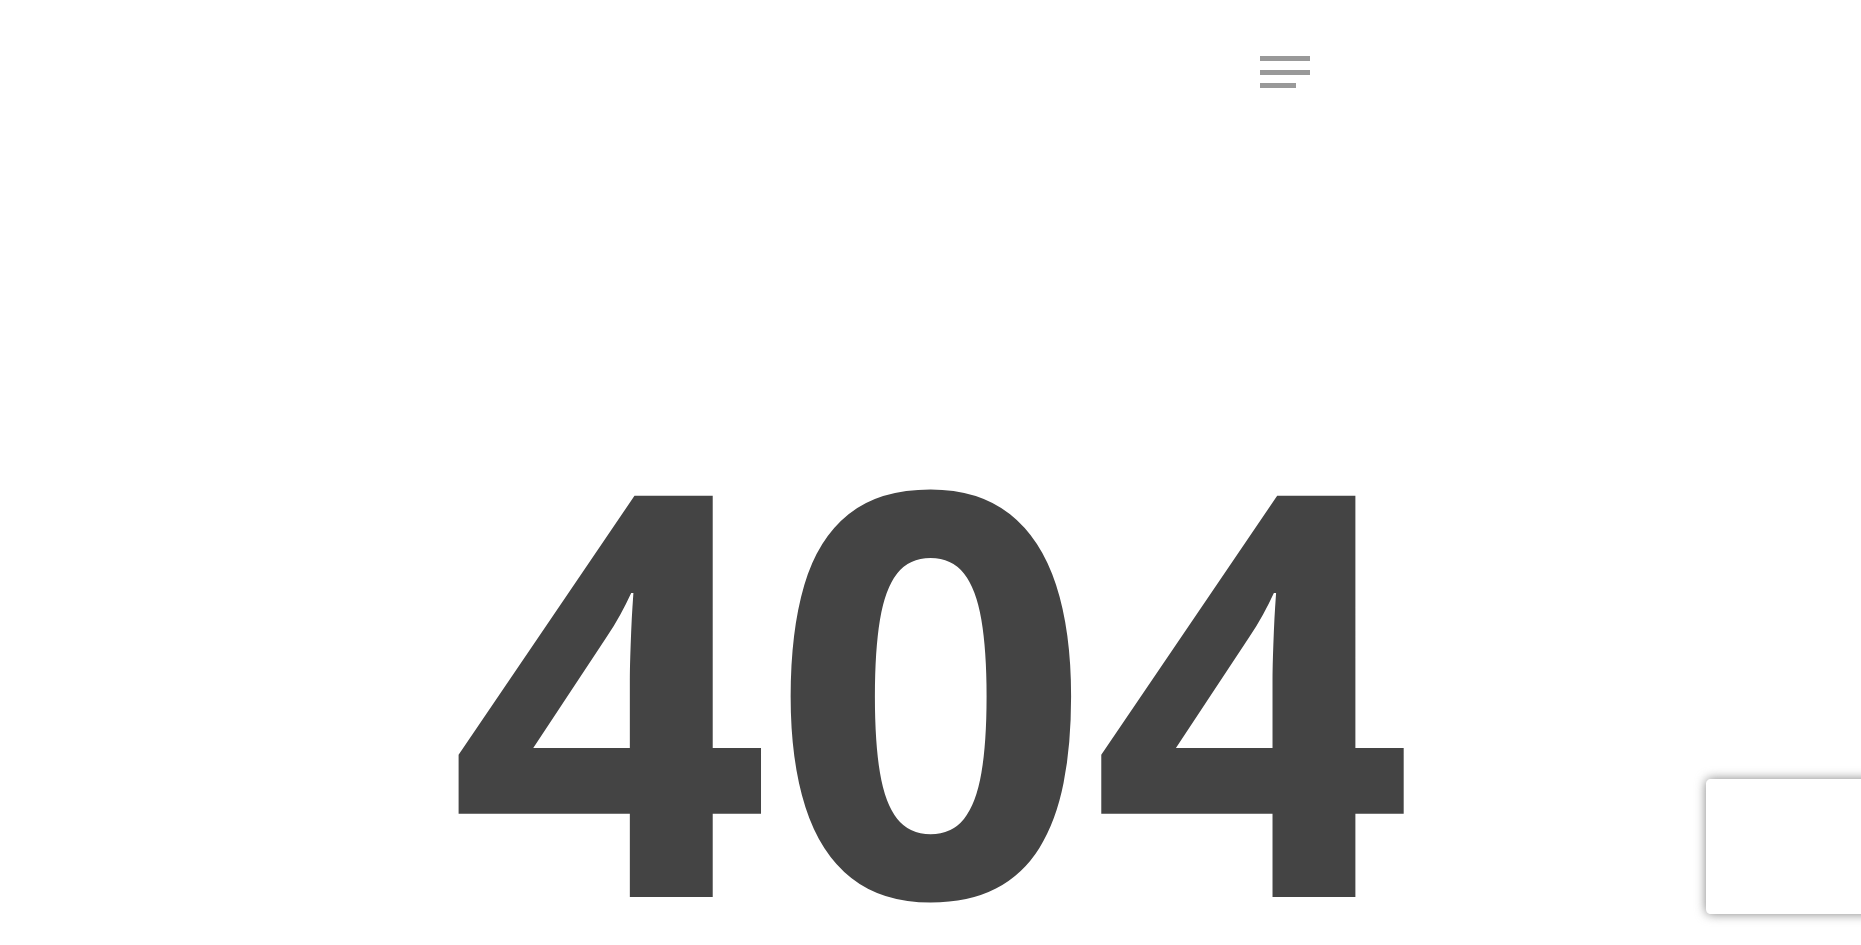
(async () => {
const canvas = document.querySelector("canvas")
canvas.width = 1861
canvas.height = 945
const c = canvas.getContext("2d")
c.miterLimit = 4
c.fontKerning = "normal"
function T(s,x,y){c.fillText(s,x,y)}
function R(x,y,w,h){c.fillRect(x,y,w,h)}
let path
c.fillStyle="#fff"
R(0,0,1861,945)
c.fillStyle="#999"
R(1260,56,50,5)
R(1260,83,36,5)
R(1260,70,50,5)
c.font="bold 562px Open Sans"
c.fillStyle="#444"
T("404",449,897)
c.save()
path = new Path2D("M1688 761h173v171h-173zm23 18h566c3 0 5 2 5 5v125c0 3-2 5-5 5h-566c-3 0-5-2-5-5v-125c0-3 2-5 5-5z")
c.clip(path,"evenodd")
c.fillStyle="#808080"
c.filter="blur(5.5px)"
c.beginPath()
c.roundRect(1706,779,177,135,5)
c.fill()
c.filter="none"
c.restore()
})()
